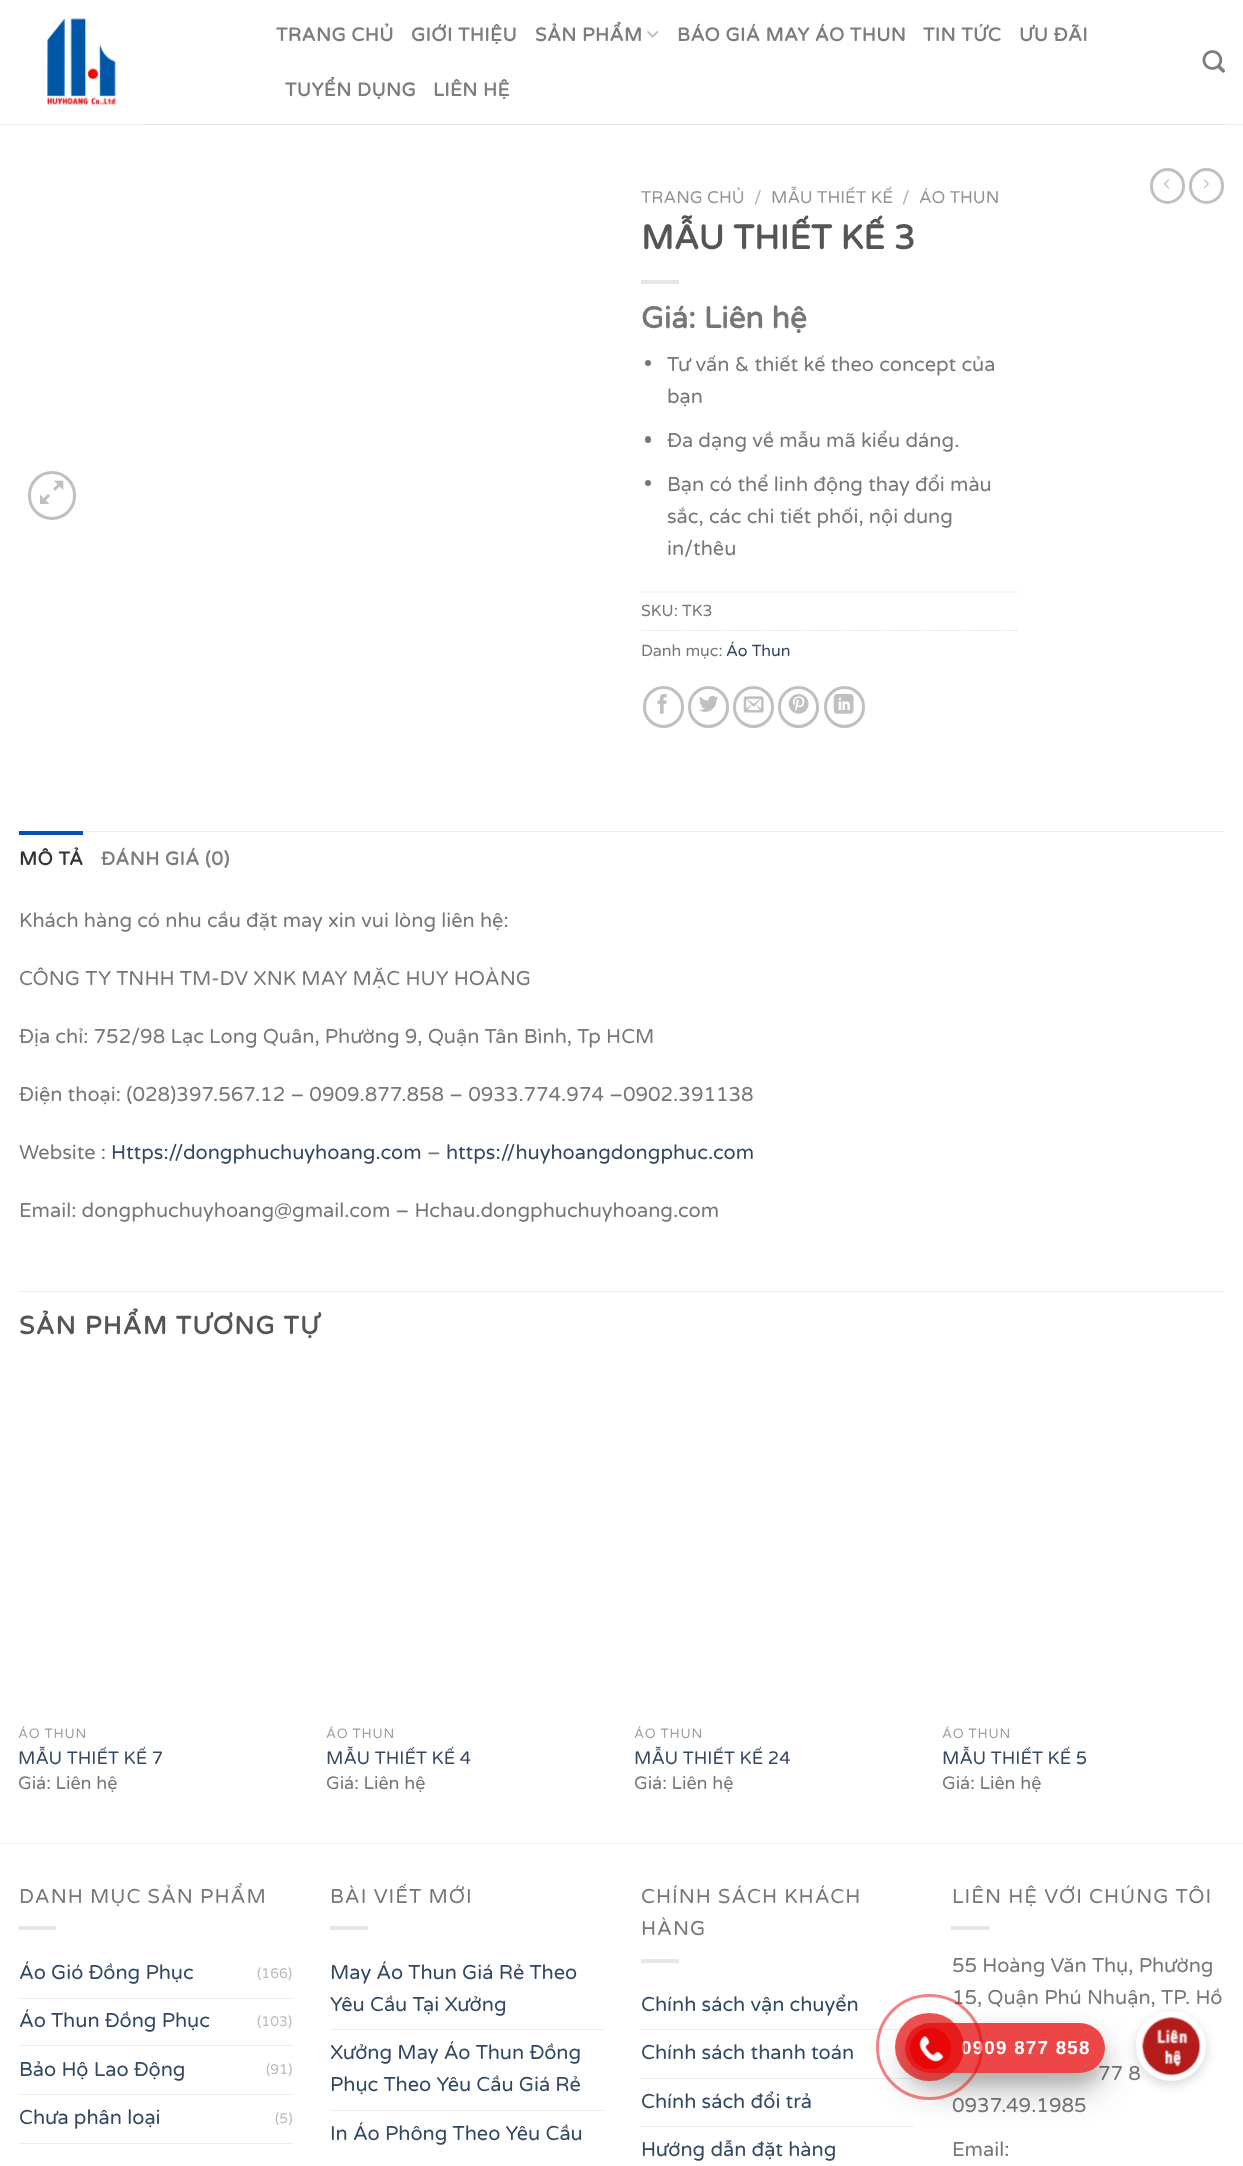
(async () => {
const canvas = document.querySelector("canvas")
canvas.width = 1243
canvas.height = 2166
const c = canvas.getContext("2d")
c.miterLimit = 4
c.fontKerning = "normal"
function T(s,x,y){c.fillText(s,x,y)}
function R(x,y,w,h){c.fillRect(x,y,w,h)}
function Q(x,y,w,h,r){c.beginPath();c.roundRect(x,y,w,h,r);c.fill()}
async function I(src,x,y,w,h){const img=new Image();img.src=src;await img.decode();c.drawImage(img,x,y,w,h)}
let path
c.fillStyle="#fff"
R(0,0,1243,2166)
c.fillStyle="#eee"
R(0,124,1243,1)
await I("1.png",18,18,126,107)
c.letterSpacing="0.4px"
c.font="bold 18.75px Varela Round"
c.fillStyle="#7d7d7d"
T("TRANG CHỦ",276,41)
T("GIỚI THIỆU",411,41)
T("SẢN PHẨM",535,41)
await I("2.png",647,31,12,7)
T("BÁO GIÁ MAY ÁO THUN",677,41)
T("TIN TỨC",923,41)
T("ƯU ĐÃI",1019,41)
T("TUYỂN DỤNG",285,96)
T("LIÊN HỆ",433,96)
await I("3.png",1202,50,23,23)
c.fillStyle="#7777771a"
R(19,124,1206,1)
c.beginPath()
c.roundRect(29.5,472.5,45,46,22.5)
c.strokeStyle="#c0c0c0"
c.lineWidth=3
c.stroke()
await I("4.png",40,480,24,24)
c.letterSpacing="0px"
c.font="17px Varela Round"
c.fillStyle="#949494"
T("TRANG CHỦ",641,203)
c.fillStyle="#b2b2b2"
T("/",754,203)
c.fillStyle="#949494"
T("MẪU THIẾT KẾ",771,203)
c.fillStyle="#b2b2b2"
T("/",902,203)
c.fillStyle="#949494"
T("ÁO THUN",919,203)
c.font="bold 34px Varela Round"
c.fillStyle="#555"
T("MẪU THIẾT KẾ 3",641,249)
c.fillStyle="#e6e6e6"
R(641,280,38,4)
c.font="bold 30px Varela Round"
c.fillStyle="#777"
T("Giá: Liên hệ",641,328)
c.beginPath()
c.arc(648,363,3,0,7)
c.fill()
c.font="20px Varela Round"
T("Tư vấn & thiết kế theo concept của",667,371)
T("bạn",667,403)
Q(645,436,6,7,3)
T("Đa dạng về mẫu mã kiểu dáng.",667,447)
c.beginPath()
c.arc(648,483,3,0,7)
c.fill()
T("Bạn có thể linh động thay đổi màu",667,491)
T("sắc, các chi tiết phối, nội dung",667,523)
T("in/thêu",667,555)
path = new Path2D("M641 592h376.5")
c.strokeStyle="#ddd"
c.lineWidth=1.2
c.setLineDash([1.25,1.25])
c.stroke(path)
c.font="16px Varela Round"
T("SKU: TK3",641,616)
path = new Path2D("M641 630.5h376.5")
c.stroke(path)
T("Danh mục:",641,656)
c.fillStyle="#334862"
T("Áo Thun",726,656)
c.beginPath()
c.roundRect(644.5,687.5,38,39,19)
c.strokeStyle="#c0c0c0"
c.lineWidth=3
c.setLineDash([])
c.stroke()
await I("5.png",657,693,10,21)
c.beginPath()
c.roundRect(689.5,687.5,38,39,19)
c.stroke()
await I("6.png",699,695,20,17)
c.beginPath()
c.roundRect(734.5,687.5,38,39,19)
c.stroke()
await I("7.png",743,696,21,17)
c.beginPath()
c.roundRect(779.5,687.5,38,39,19)
c.stroke()
await I("8.png",788,694,21,20)
c.beginPath()
c.roundRect(825.5,687.5,38,39,19)
c.stroke()
await I("9.png",833,693,21,21)
c.beginPath()
c.roundRect(1151.5,169.5,32,33,16)
c.stroke()
await I("10.png",1163,179,7,10)
c.beginPath()
c.roundRect(1190.5,169.5,32,33,16)
c.stroke()
await I("11.png",1203,179,6,10)
c.fillStyle="#ececec"
R(83,831,1142,1)
c.fillStyle="#0550b2"
R(19,831,64,4)
c.letterSpacing="0.4px"
c.font="bold 18.75px Varela Round"
c.fillStyle="#353535"
T("MÔ TẢ",19,865)
c.fillStyle="#7d7d7d"
T("ĐÁNH GIÁ (0)",101,865)
c.letterSpacing="0px"
c.font="20px Varela Round"
c.fillStyle="#777"
T("Khách hàng có nhu cầu đặt may xin vui lòng liên hệ:",19,927)
T("CÔNG TY TNHH TM-DV XNK MAY MẶC HUY HOÀNG",19,985)
T("Địa chỉ: 752/98 Lạc Long Quân, Phường 9, Quận Tân Bình, Tp HCM",19,1043)
T("Điện thoại: (028)397.567.12 – 0909.877.858 – 0933.774.974 –0902.391138",19,1101)
T("Website :",19,1159)
c.fillStyle="#334862"
T("Https://dongphuchuyhoang.com",111,1159)
c.fillStyle="#777"
T("–",427,1159)
c.fillStyle="#334862"
T("https://huyhoangdongphuc.com",446,1159)
c.fillStyle="#777"
T("Email: dongphuchuyhoang@gmail.com – Hchau.dongphuchuyhoang.com",19,1217)
c.fillStyle="#ececec"
R(19,1291,1206,1)
c.letterSpacing="1.25px"
c.font="bold 25px Varela Round"
c.fillStyle="#555"
T("SẢN PHẨM TƯƠNG TỰ",19,1334)
c.letterSpacing="0.75px"
c.font="13.5px Varela Round"
c.fillStyle="#a0a0a0"
T("ÁO THUN",18,1738)
c.letterSpacing="0px"
c.font="18px Varela Round"
c.fillStyle="#334862"
T("MẪU THIẾT KẾ 7",18,1764)
c.fillStyle="#777"
T("Giá: Liên hệ",18,1789)
c.letterSpacing="0.75px"
c.font="13.5px Varela Round"
c.fillStyle="#a0a0a0"
T("ÁO THUN",326,1738)
c.letterSpacing="0px"
c.font="18px Varela Round"
c.fillStyle="#334862"
T("MẪU THIẾT KẾ 4",326,1764)
c.fillStyle="#777"
T("Giá: Liên hệ",326,1789)
c.letterSpacing="0.75px"
c.font="13.5px Varela Round"
c.fillStyle="#a0a0a0"
T("ÁO THUN",634,1738)
c.letterSpacing="0px"
c.font="18px Varela Round"
c.fillStyle="#334862"
T("MẪU THIẾT KẾ 24",634,1764)
c.fillStyle="#777"
T("Giá: Liên hệ",634,1789)
c.letterSpacing="0.75px"
c.font="13.5px Varela Round"
c.fillStyle="#a0a0a0"
T("ÁO THUN",942,1738)
c.letterSpacing="0px"
c.font="18px Varela Round"
c.fillStyle="#334862"
T("MẪU THIẾT KẾ 5",942,1764)
c.fillStyle="#777"
T("Giá: Liên hệ",942,1789)
c.fillStyle="#f2f2f2"
R(0,1843,1243,1)
c.letterSpacing="1px"
c.font="20px Varela Round"
c.fillStyle="#777"
T("DANH MỤC SẢN PHẨM",19,1903)
c.fillStyle="#e6e6e6"
R(19,1926,37,4)
c.letterSpacing="0px"
c.fillStyle="#334862"
T("Áo Gió Đồng Phục",19,1979)
c.font="14px Varela Round"
c.fillStyle="#bbb"
T("(166)",257,1978)
c.fillStyle="#ececec"
R(19,1998,274,1)
c.font="20px Varela Round"
c.fillStyle="#334862"
T("Áo Thun Đồng Phục",19,2027)
c.font="14px Varela Round"
c.fillStyle="#bbb"
T("(103)",257,2026)
c.fillStyle="#ececec"
R(19,2045,274,1)
c.font="20px Varela Round"
c.fillStyle="#334862"
T("Bảo Hộ Lao Động",19,2076)
c.font="14px Varela Round"
c.fillStyle="#bbb"
T("(91)",266,2074)
c.fillStyle="#ececec"
R(19,2094,274,1)
c.font="20px Varela Round"
c.fillStyle="#334862"
T("Chưa phân loại",19,2124)
c.font="14px Varela Round"
c.fillStyle="#bbb"
T("(5)",275,2123)
c.fillStyle="#ececec"
R(19,2143,274,1)
c.letterSpacing="1px"
c.font="20px Varela Round"
c.fillStyle="#777"
T("BÀI VIẾT MỚI",330,1903)
c.fillStyle="#e6e6e6"
R(330,1926,38,4)
c.letterSpacing="0px"
c.fillStyle="#334862"
T("May Áo Thun Giá Rẻ Theo",330,1979)
T("Yêu Cầu Tại Xưởng",330,2011)
c.fillStyle="#ececec"
R(330,2029,274,1)
c.fillStyle="#334862"
T("Xưởng May Áo Thun Đồng",330,2059)
T("Phục Theo Yêu Cầu Giá Rẻ",330,2091)
c.fillStyle="#ececec"
R(330,2110,274,1)
c.fillStyle="#334862"
T("In Áo Phông Theo Yêu Cầu",330,2140)
c.letterSpacing="1px"
c.fillStyle="#777"
T("CHÍNH SÁCH KHÁCH",641,1903)
T("HÀNG",641,1935)
c.fillStyle="#e6e6e6"
R(641,1959,38,4)
c.letterSpacing="0px"
c.fillStyle="#334862"
T("Chính sách vận chuyển",641,2011)
c.fillStyle="#ececec"
R(641,2029,273,1)
c.fillStyle="#334862"
T("Chính sách thanh toán",641,2059)
c.fillStyle="#ececec"
R(641,2078,273,1)
c.fillStyle="#334862"
T("Chính sách đổi trả",641,2108)
c.fillStyle="#ececec"
R(641,2126,273,1)
c.fillStyle="#334862"
T("Hướng dẫn đặt hàng",641,2156)
c.letterSpacing="1px"
c.fillStyle="#777"
T("LIÊN HỆ VỚI CHÚNG TÔI",952,1903)
c.fillStyle="#e6e6e6"
R(951,1926,38,4)
c.letterSpacing="0px"
c.fillStyle="#777"
T("55 Hoàng Văn Thụ, Phường",952,1972)
T("15, Quận Phú Nhuận, TP. Hồ",952,2004)
T("77 8",1098,2080)
T("0937.49.1985",952,2112)
T("Email:",952,2156)
c.save()
path = new Path2D("M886 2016h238v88h-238zm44 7h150c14 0 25 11 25 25c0 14-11 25-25 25h-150c-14 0-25-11-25-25c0-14 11-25 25-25z")
c.clip(path,"evenodd")
c.fillStyle="#0000001a"
c.filter="blur(6px)"
c.beginPath()
c.roundRect(905,2035,200,50,25)
c.fill()
c.filter="none"
c.restore()
c.save()
path = new Path2D("M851 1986h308v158h-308zm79 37h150c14 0 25 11 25 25c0 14-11 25-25 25h-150c-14 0-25-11-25-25c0-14 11-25 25-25z")
c.clip(path,"evenodd")
c.fillStyle="#00000040"
c.filter="blur(17.5px)"
c.beginPath()
c.roundRect(905,2040,200,50,25)
c.fill()
c.filter="none"
c.restore()
c.fillStyle="#e60808bf"
Q(905,2023,200,50,25)
c.letterSpacing="1.25px"
c.font="bold 18.75px Liberation Sans"
c.fillStyle="#fff"
T("0909 877 858",961,2054)
c.beginPath()
c.roundRect(877.5,1995.5,104,103,51.5)
c.strokeStyle="#e6080880"
c.stroke()
c.fillStyle="#e60808b3"
Q(895,2013,69,68,34)
c.fillStyle="#e60808"
c.beginPath()
c.arc(930.5,2048.5,20.5,0,7)
c.fill()
await I("12.png",919,2035,25,27)
c.fillStyle="#00000014"
c.filter="blur(6px)"
c.beginPath()
c.roundRect(1136,2015,70,70,35)
c.fill()
c.filter="none"
c.filter="blur(6px)"
c.beginPath()
c.roundRect(1136,2015,70,70,35)
c.fill()
c.filter="none"
c.fillStyle="#fff"
c.beginPath()
c.arc(1171,2046,32,0,7)
c.fill()
c.strokeStyle="#fff"
c.lineWidth=6
c.stroke()
await I("13.png",1142,2017,59,59)
})()
